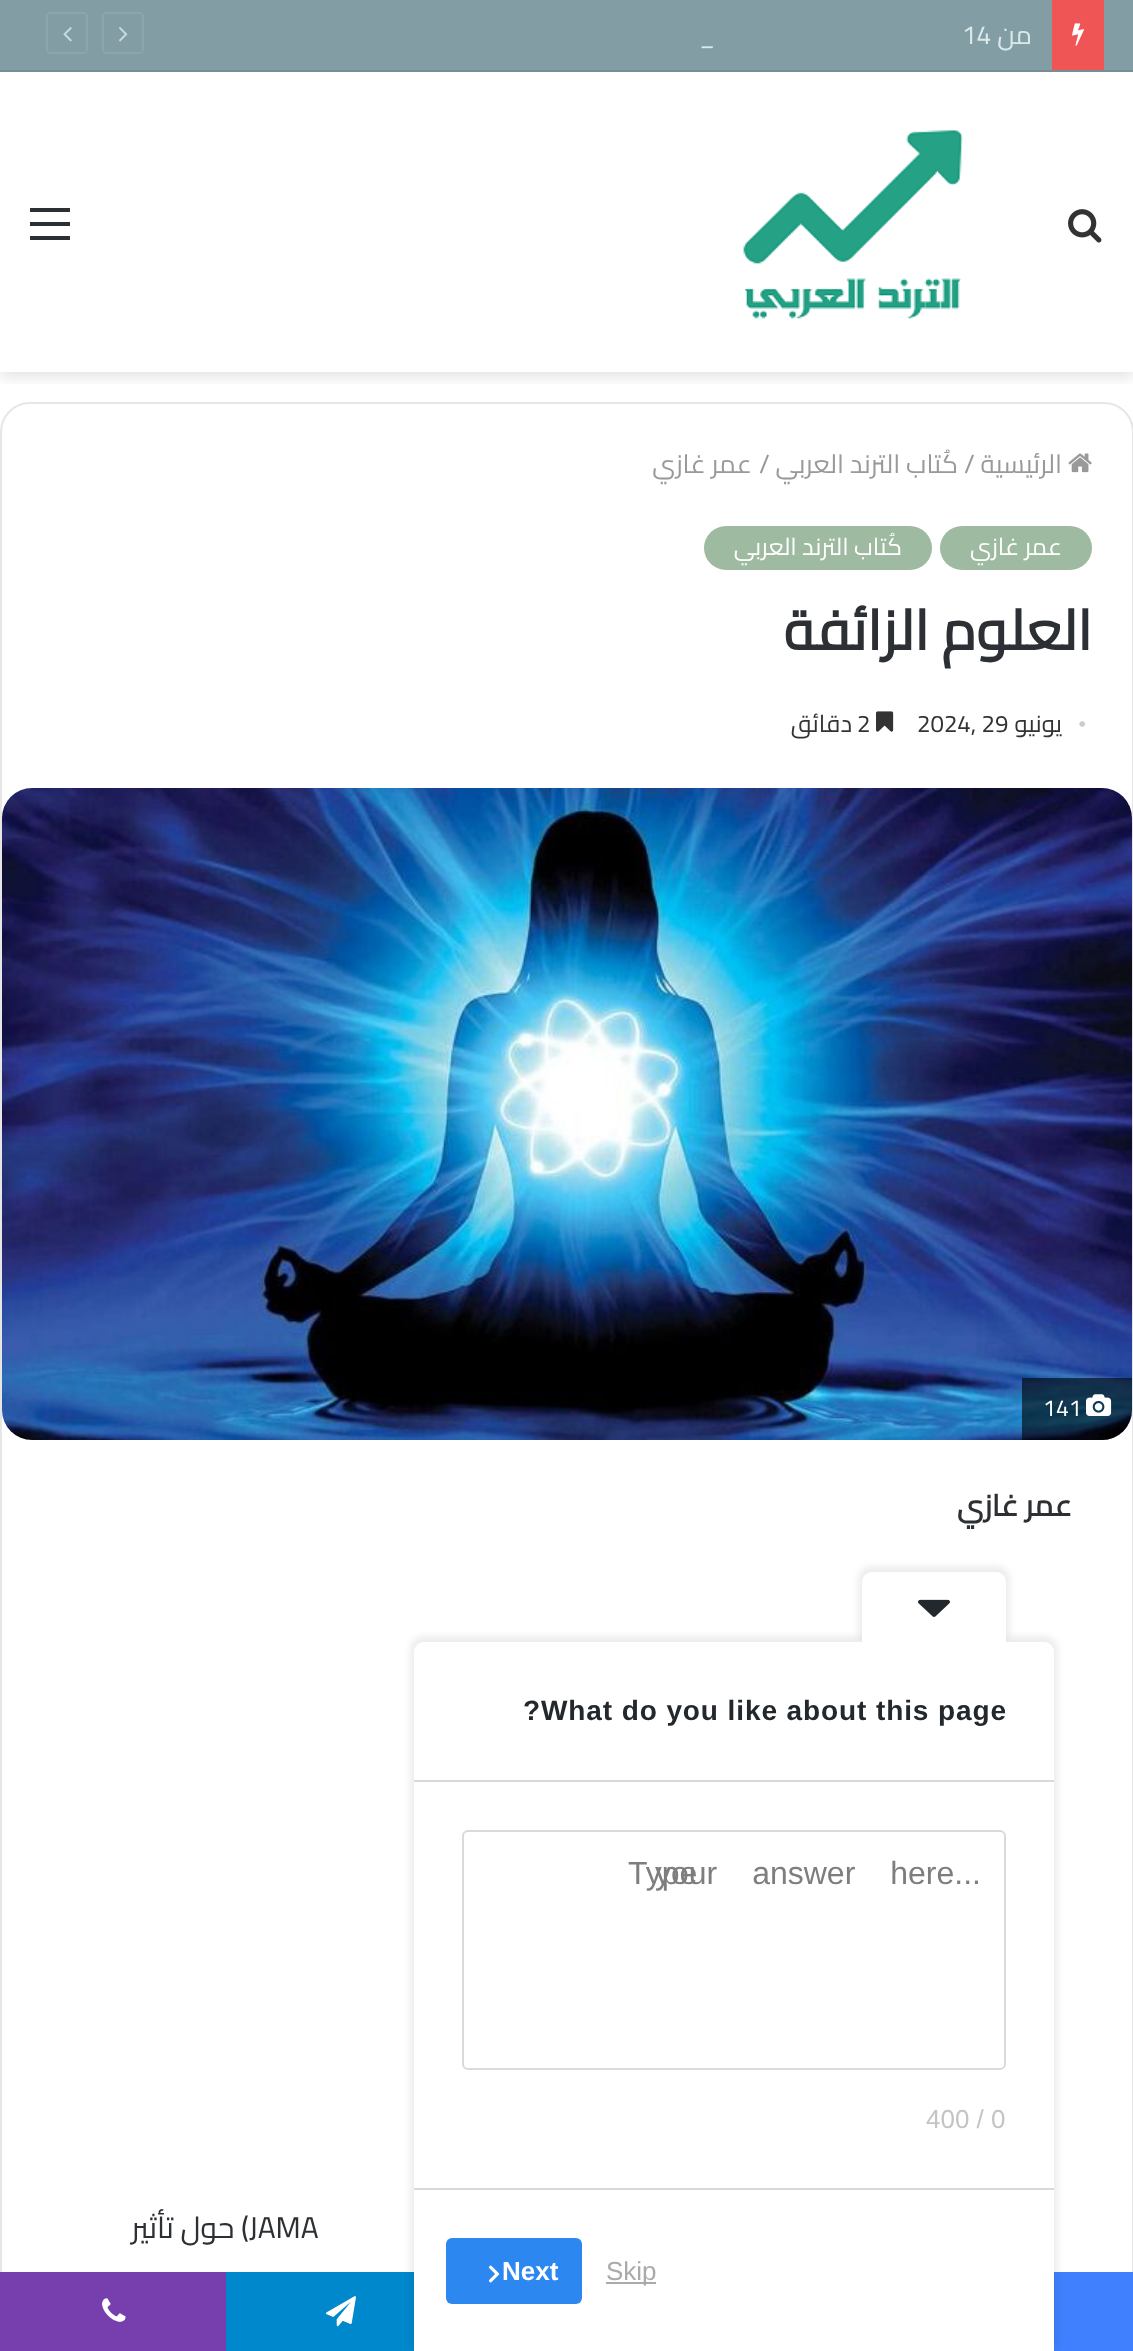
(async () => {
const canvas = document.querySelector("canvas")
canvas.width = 1133
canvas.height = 2351
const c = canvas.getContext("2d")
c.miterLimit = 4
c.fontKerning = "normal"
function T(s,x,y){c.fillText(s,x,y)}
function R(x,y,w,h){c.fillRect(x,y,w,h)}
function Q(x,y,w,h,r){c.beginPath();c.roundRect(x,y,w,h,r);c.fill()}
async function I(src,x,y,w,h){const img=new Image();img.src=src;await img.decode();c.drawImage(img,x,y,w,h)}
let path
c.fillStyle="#fff"
R(0,0,1133,2351)
c.save()
c.beginPath()
c.rect(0,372,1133,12)
c.clip()
c.fillStyle="#0000001a"
c.filter="blur(7px)"
c.beginPath()
c.rect(0,78,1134,300)
c.fill()
c.filter="none"
c.restore()
c.fillStyle="#839da4"
R(0,0,1133,70)
c.fillStyle="#768d94"
R(0,70,1133,2)
c.fillStyle="#f05555"
R(1052,0,52,70)
await I("1.png",1072,23,12,23)
c.direction="rtl"
c.font="26px Cairo"
c.fillStyle="#daeaea"
T("من",1032,44)
c.direction="ltr"
T("14",962,44)
T("_",699,44)
path = new Path2D("M140 53h-34c-1.5 0-3-1.5-3-3v-34c0-1.5 1.5-3 3-3h34c1.5 0 3 1.5 3 3v34c0 1.5-1.5 3-3 3z")
c.strokeStyle="#8da5ab"
c.lineWidth=2
c.stroke(path)
await I("2.png",119,27,9,15)
path = new Path2D("M84 53h-34c-1.5 0-3-1.5-3-3v-34c0-1.5 1.5-3 3-3h34c1.5 0 3 1.5 3 3v34c0 1.5-1.5 3-3 3z")
c.stroke(path)
await I("3.png",63,27,9,15)
await I("4.png",1068,209,34,34)
await I("5.png",743,130,220,189)
c.fillStyle="#2c2f34"
R(30,222,40,4)
R(30,208,40,4)
R(30,236,40,4)
c.beginPath()
c.roundRect(1,403,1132,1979,29)
c.strokeStyle="#e6e6e6"
c.stroke()
await I("6.png",1068,453,24,20)
c.direction="rtl"
c.fillStyle="#999"
T("الرئيسية",1062,473)
c.direction="ltr"
T("/",964,473)
c.direction="rtl"
T("كُتاب الترند العربي",958,473)
c.direction="ltr"
T("/",759,473)
c.direction="rtl"
T("عمر غازي",752,473)
c.fillStyle="#9ebaa0"
Q(940,526,152,44,22)
c.font="24px Cairo"
c.fillStyle="#fff"
T("عمر غازي",1062,555)
c.fillStyle="#9ebaa0"
Q(704,526,228,44,22)
c.fillStyle="#fff"
T("كُتاب الترند العربي",902,555)
c.font="bold 56px Cairo"
c.fillStyle="#2c2f34"
T("العلوم الزائفة",1092,650)
c.direction="ltr"
c.font="24px Liberation Serif"
c.fillStyle="#ccc"
T("•",1078,732)
c.direction="rtl"
c.font="24px Cairo"
c.fillStyle="#333"
T("يونيو",1062,732)
c.direction="ltr"
T("2024, 29",917,732)
await I("7.png",876,711,18,21)
T("2",857,732)
c.direction="rtl"
T("دقائق",852,732)
await I("8.png",2,788,1130,652)
c.fillStyle="#00000099"
c.beginPath()
c.roundRect(1022,1378,110,62,[0,0,30,0])
c.fill()
await I("9.png",1086,1394,26,22)
c.direction="ltr"
c.font="23px Cairo"
c.fillStyle="#fff"
T("141",1043,1416)
c.direction="rtl"
c.font="bold 30px Cairo"
c.fillStyle="#2c2f34"
T("عمر غازي",1072,1516)
c.direction="ltr"
c.font="30px Cairo"
T("JAMA",249,2238)
c.direction="rtl"
T(") حول تأثير",249,2238)
c.fillStyle="#4080ff"
R(1054,2272,79,79)
c.fillStyle="#08c"
R(226,2272,188,79)
await I("10.png",326,2296,30,31)
c.fillStyle="#773ead"
R(0,2272,226,79)
await I("11.png",102,2298,24,24)
c.fillStyle="#00000012"
c.filter="blur(3px)"
c.beginPath()
c.roundRect(410,1636,648,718,14)
c.fill()
c.filter="none"
c.fillStyle="#fff"
path = new Path2D("M424 1642h620c5.5 0 10 4.5 10 10v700h-640v-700c0-5.5 4.5-10 10-10z")
c.fill(path)
c.save()
path = new Path2D("M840.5 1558h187l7.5 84h-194.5z")
c.clip(path)
c.fillStyle="#00000012"
c.filter="blur(3px)"
c.beginPath()
c.roundRect(858,1566,152,78,14)
c.fill()
c.filter="none"
c.restore()
c.beginPath()
c.roundRect(862,1572,144,70,[10,10,0,0])
c.fill()
await I("12.png",918,1599,32,18)
c.letterSpacing="0.9px"
c.direction="ltr"
c.font="bold 28px Liberation Sans"
c.fillStyle="#23282d"
T("?What do you like about this page",523,1720)
c.fillStyle="#d9d9d9"
R(414,1780,640,2)
R(414,2188,640,2)
c.beginPath()
c.roundRect(463,1831,542,238,5)
c.strokeStyle="#dadada"
c.stroke()
c.letterSpacing="0px"
c.font="32px Liberation Sans"
c.fillStyle="#7e7e7e"
T("Type",628,1884)
c.wordSpacing="26px"
T("your answer here...",655,1884)
c.wordSpacing="0px"
c.font="26px Liberation Sans"
c.fillStyle="#c4c4c4"
T("400 / 0",926,2128)
c.fillStyle="#aaa"
R(606,2282,50,2)
T("Skip",606,2280)
c.fillStyle="#2d87f1"
Q(446,2238,136,66,6)
c.font="bold 26px Liberation Sans"
c.fillStyle="#fff"
T("Next",502,2280)
await I("13.png",488,2265,12,18)
})()
